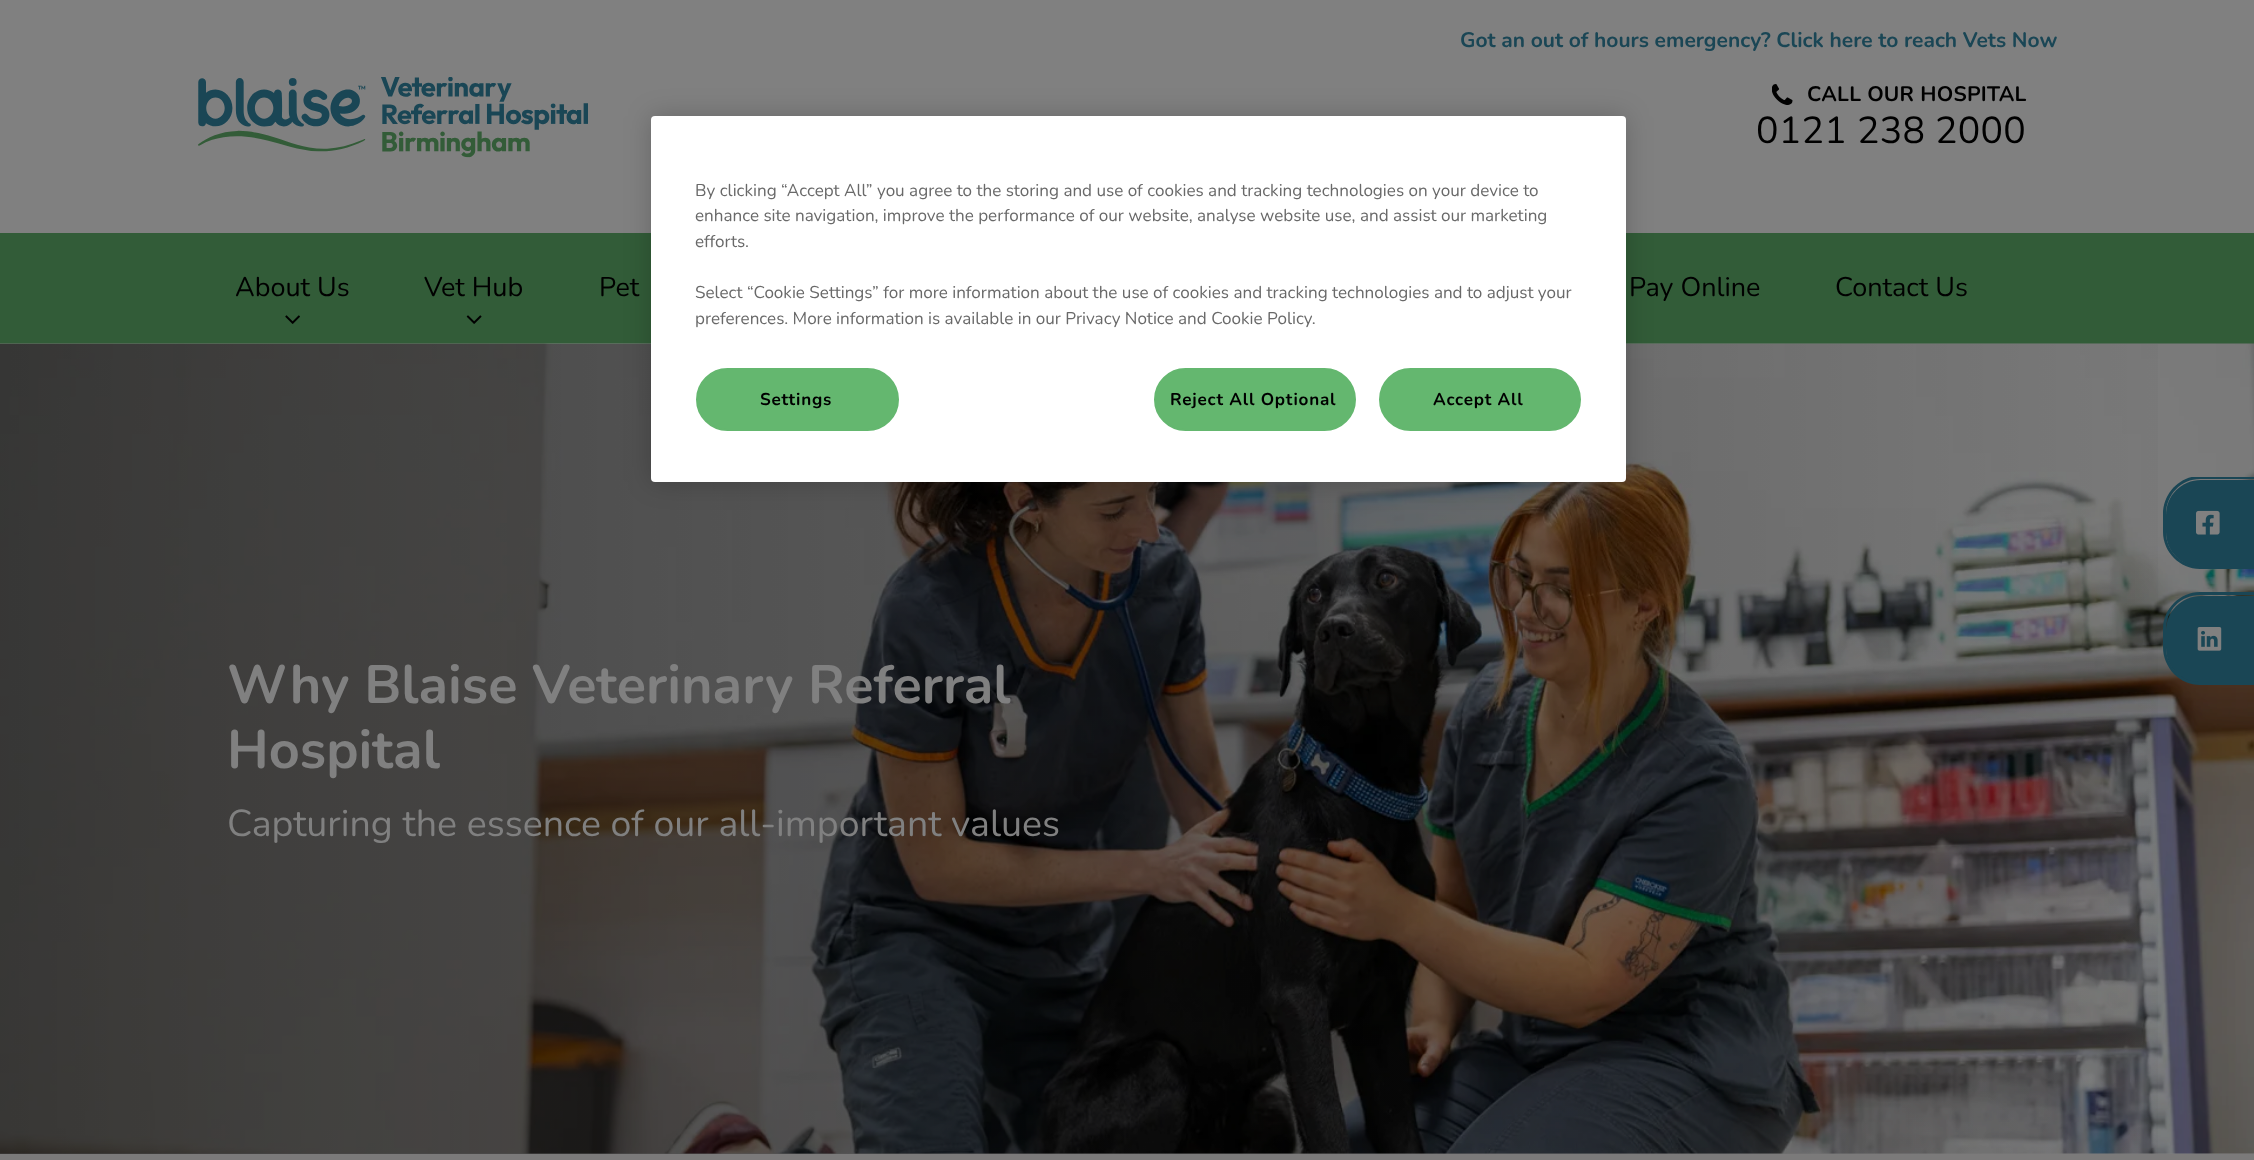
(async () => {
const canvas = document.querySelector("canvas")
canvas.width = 2254
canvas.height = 1160
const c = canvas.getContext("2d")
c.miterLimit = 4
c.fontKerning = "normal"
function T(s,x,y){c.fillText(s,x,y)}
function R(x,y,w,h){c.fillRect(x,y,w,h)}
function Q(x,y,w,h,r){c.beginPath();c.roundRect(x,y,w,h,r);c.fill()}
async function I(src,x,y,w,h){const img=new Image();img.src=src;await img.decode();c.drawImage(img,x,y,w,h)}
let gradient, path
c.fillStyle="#808080"
R(0,0,2254,1160)
c.font="bold 21px Nunito"
c.fillStyle="#1a4655"
T("Got an out of hours emergency? Click here to reach Vets Now",1460,47)
await I("1.png",198,77,390,81)
await I("2.png",1772,84,21,21)
c.letterSpacing="0.25px"
c.fillStyle="#000"
T("CALL OUR HOSPITAL",1807,101)
c.font="37.5px Nunito"
T("0121 238 2000",1756,143)
c.fillStyle="#325c38"
R(0,233,2254,111)
c.letterSpacing="0px"
c.font="27px Nunito"
c.fillStyle="#000"
T("About Us",235,296)
await I("3.png",285,315,15,9)
T("Vet Hub",424,296)
await I("4.png",466,315,16,9)
T("Pet",599,296)
T("Pay Online",1629,296)
T("Contact Us",1835,296)
await I("7.png",0,343,2254,811)
c.fillStyle="#1a4655"
path = new Path2D("M2201 480h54v87h-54c-19.5 0-35-15.5-35-35v-17c0-19.5 15.5-35 35-35z")
c.fill(path)
c.save()
c.beginPath()
c.rect(2163,477,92,209)
c.clip()
path = new Path2D("M2200 476h54v93h-54c-20 0-37-17-37-37v-18c0-21 17-38 37-38zm0 3h54v87h-54c-19 0-34-15-34-34v-18c0-19 15-35 34-35z")
c.fill(path,"evenodd")
c.restore()
await I("5.png",2196,510,24,25)
path = new Path2D("M2201 596h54v87h-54c-19.5 0-35-15.5-35-35v-17c0-19.5 15.5-35 35-35z")
c.fill(path)
path = new Path2D("M2200 592h54v93h-54c-20 0-37-17-37-38v-18c0-20 17-37 37-37zm0 3h54v87h-54c-19 0-34-16-34-35v-18c0-19 15-34 34-34z")
c.fill(path,"evenodd")
await I("6.png",2197,627,25,24)
gradient = c.createLinearGradient(0,749,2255,748)
gradient.addColorStop(0,"#00000080")
gradient.addColorStop(1,"#00000000")
c.fillStyle = gradient
R(0,344,2158,810)
c.font="bold 54px Nunito"
c.fillStyle="#808080"
T("Why Blaise Veterinary Referral",227,703)
T("Hospital",227,768)
c.font="37.5px Nunito"
T("Capturing the essence of our all-important values",227,836)
c.fillStyle="#7b7a7a"
R(0,1154,2254,6)
c.fillStyle="#00000033"
c.filter="blur(13.5px)"
c.beginPath()
c.roundRect(651,116,975,366,4)
c.fill()
c.filter="none"
c.fillStyle="#fff"
Q(651,116,975,366,4)
c.font="17.07px Nunito"
c.fillStyle="#696969"
T("By clicking “Accept All” you agree to the storing and use of cookies and tracking technologies on your device to",695,196)
T("enhance site navigation, improve the performance of our website, analyse website use, and assist our marketing",695,221)
T("efforts.",695,247)
T("Select “Cookie Settings” for more information about the use of cookies and tracking technologies and to adjust your",695,298)
T("preferences. More information is available in our Privacy Notice and Cookie Policy.",695,324)
c.fillStyle="#64b76f"
c.beginPath()
c.roundRect(697,369,201,61,30.5)
c.fill()
c.strokeStyle="#64b76f"
c.lineWidth=2
c.stroke()
c.letterSpacing="0.8px"
c.font="bold 17.07px Nunito"
c.fillStyle="#000"
T("Settings",760,405)
c.fillStyle="#64b76f"
c.beginPath()
c.roundRect(1155,369,200,61,30.5)
c.fill()
c.stroke()
c.fillStyle="#000"
T("Reject All Optional",1170,405)
c.fillStyle="#64b76f"
c.beginPath()
c.roundRect(1380,369,200,61,30.5)
c.fill()
c.stroke()
c.fillStyle="#000"
T("Accept All",1433,405)
})()
